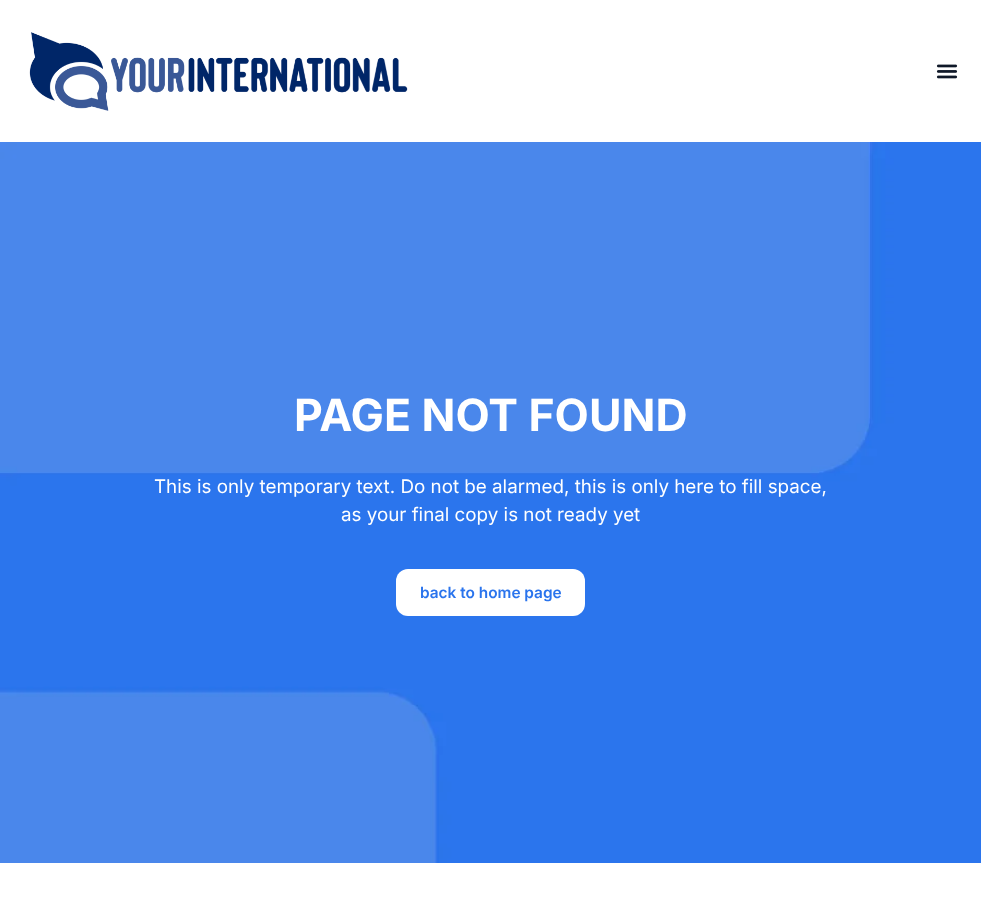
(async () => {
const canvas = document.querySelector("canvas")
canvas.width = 981
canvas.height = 901
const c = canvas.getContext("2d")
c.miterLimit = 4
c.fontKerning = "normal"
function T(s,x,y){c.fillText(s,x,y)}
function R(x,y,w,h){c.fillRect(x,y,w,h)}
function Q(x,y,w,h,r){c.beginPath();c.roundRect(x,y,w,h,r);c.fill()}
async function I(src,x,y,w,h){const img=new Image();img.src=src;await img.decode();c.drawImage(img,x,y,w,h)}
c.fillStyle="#fff"
R(0,0,981,901)
await I("1.png",29,32,379,79)
await I("2.png",936,64,22,15)
await I("3.png",0,142,981,721)
c.font="bold 44.5px Inter"
T("PAGE NOT FOUND",294,431)
c.font="18.8px Inter"
T("This is only temporary text. Do not be alarmed, this is only here to fill space,",154,493)
T("as your final copy is not ready yet",341,521)
Q(396,569,189,47,12)
c.font="600 15.4px Inter"
c.fillStyle="#2a74ed"
T("back to home page",420,598)
})()
